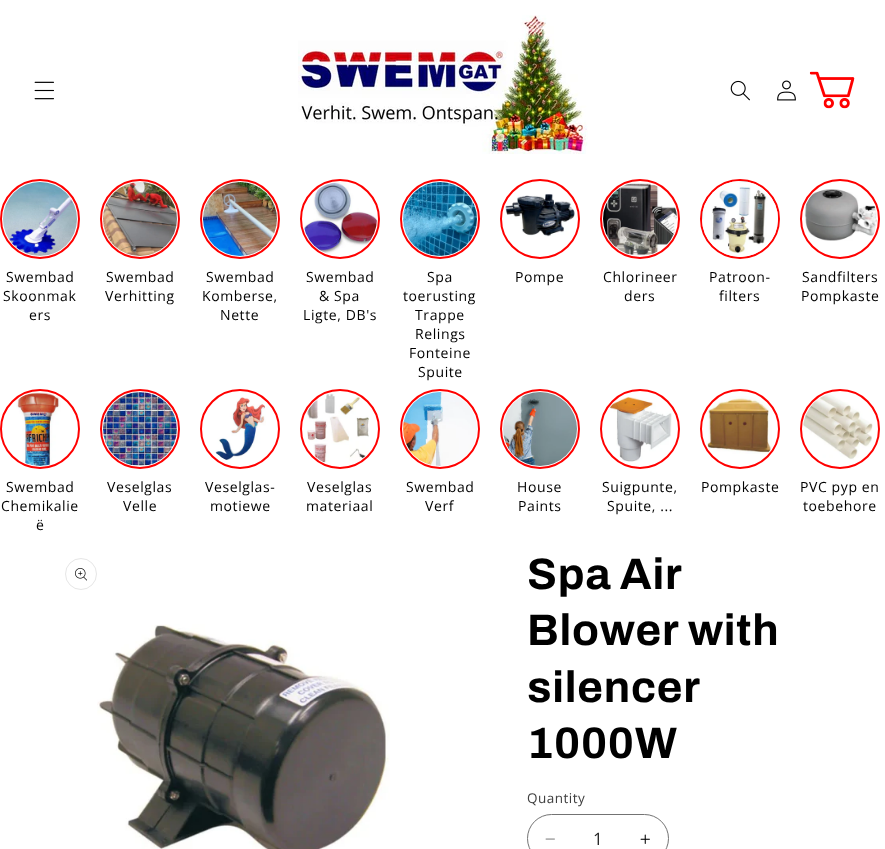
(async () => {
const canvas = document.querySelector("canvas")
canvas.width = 885
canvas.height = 849
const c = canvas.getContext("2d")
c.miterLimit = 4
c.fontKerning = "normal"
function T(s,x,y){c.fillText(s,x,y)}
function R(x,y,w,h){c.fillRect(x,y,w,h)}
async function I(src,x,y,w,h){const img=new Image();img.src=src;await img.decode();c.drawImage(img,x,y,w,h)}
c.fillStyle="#fff"
R(0,0,885,849)
await I("1.png",34,81,20,19)
await I("2.png",298,15,290,139)
await I("3.png",730,80,20,21)
await I("4.png",777,80,19,21)
await I("5.png",809,71,46,38)
c.beginPath()
c.arc(40,219,39,0,7)
c.strokeStyle="#f00"
c.lineWidth=2
c.stroke()
await I("6.png",3,182,74,74)
c.letterSpacing="0.6px"
c.font="14px Open Sans"
c.fillStyle="#000"
T("Swembad",6,282)
T("Skoonmak",3,301)
T("ers",29,320)
c.beginPath()
c.arc(140,219,39,0,7)
c.stroke()
await I("7.png",103,182,74,74)
T("Swembad",106,282)
T("Verhitting",105,301)
c.beginPath()
c.arc(240,219,39,0,7)
c.stroke()
await I("8.png",203,182,74,74)
T("Swembad",206,282)
T("Komberse,",202,301)
T("Nette",220,320)
c.beginPath()
c.arc(340,219,39,0,7)
c.stroke()
await I("9.png",304,182,73,72)
T("Swembad",306,282)
T("& Spa",319,301)
T("Ligte, DB's",303,320)
c.beginPath()
c.arc(440,219,39,0,7)
c.stroke()
await I("10.png",403,182,74,74)
T("Spa",427,282)
T("toerusting",403,301)
T("Trappe",415,320)
T("Relings",415,339)
T("Fonteine",409,358)
T("Spuite",418,377)
c.beginPath()
c.arc(540,219,39,0,7)
c.stroke()
await I("11.png",505,193,70,44)
T("Pompe",515,282)
c.beginPath()
c.arc(640,219,39,0,7)
c.stroke()
await I("12.png",603,183,74,73)
T("Chlorineer",603,282)
T("ders",624,301)
c.beginPath()
c.arc(740,219,39,0,7)
c.stroke()
await I("13.png",702,181,76,76)
T("Patroon-",709,282)
T("filters",719,301)
c.beginPath()
c.arc(840,219,39,0,7)
c.stroke()
await I("14.png",804,189,73,52)
T("Sandfilters",802,282)
T("Pompkaste",801,301)
c.beginPath()
c.arc(40,429,39,0,7)
c.stroke()
await I("15.png",16,392,45,74)
T("Swembad",6,492)
T("Chemikalie",1,511)
T("ë",36,530)
c.beginPath()
c.arc(140,429,39,0,7)
c.stroke()
await I("16.png",103,392,74,74)
T("Veselglas",107,492)
T("Velle",123,511)
c.beginPath()
c.arc(240,429,39,0,7)
c.stroke()
await I("17.png",215,397,51,63)
T("Veselglas-",205,492)
T("motiewe",210,511)
c.beginPath()
c.arc(340,429,39,0,7)
c.stroke()
await I("18.png",307,393,62,70)
T("Veselglas",307,492)
T("materiaal",306,511)
c.beginPath()
c.arc(440,429,39,0,7)
c.stroke()
await I("19.png",403,392,74,74)
T("Swembad",406,492)
T("Verf",425,511)
c.beginPath()
c.arc(540,429,39,0,7)
c.stroke()
await I("20.png",503,392,74,74)
T("House",517,492)
T("Paints",518,511)
c.beginPath()
c.arc(640,429,39,0,7)
c.stroke()
await I("21.png",609,397,63,65)
T("Suigpunte,",602,492)
T("Spuite, ...",607,511)
c.beginPath()
c.arc(740,429,39,0,7)
c.stroke()
await I("22.png",706,396,66,58)
T("Pompkaste",701,492)
c.beginPath()
c.arc(840,429,39,0,7)
c.stroke()
await I("23.png",803,394,70,66)
T("PVC pyp en",800,492)
T("toebehore",803,511)
c.beginPath()
c.arc(81,574,15.5,0,7)
c.strokeStyle="#e6e6e6"
c.lineWidth=1
c.stroke()
await I("24.png",75,568,12,13)
await I("25.png",97,624,293,225)
c.letterSpacing="0.75px"
c.wordSpacing="-1px"
c.font="bold 44px Archivo"
T("Spa Air",527,589)
c.wordSpacing="0px"
T("Blower with",527,645)
T("silencer",527,702)
T("1000W",527,758)
c.letterSpacing="0.5px"
c.font="13.5px Open Sans"
c.fillStyle="#404040"
T("Quantity",527,803)
await I("26.png",545,838,10,2)
await I("27.png",640,834,10,10)
c.beginPath()
c.roundRect(527.5,814.5,141,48,24)
c.strokeStyle="#737373"
c.stroke()
c.letterSpacing="0px"
c.font="17px Open Sans"
c.fillStyle="#262626"
T("1",593,845)
})()
